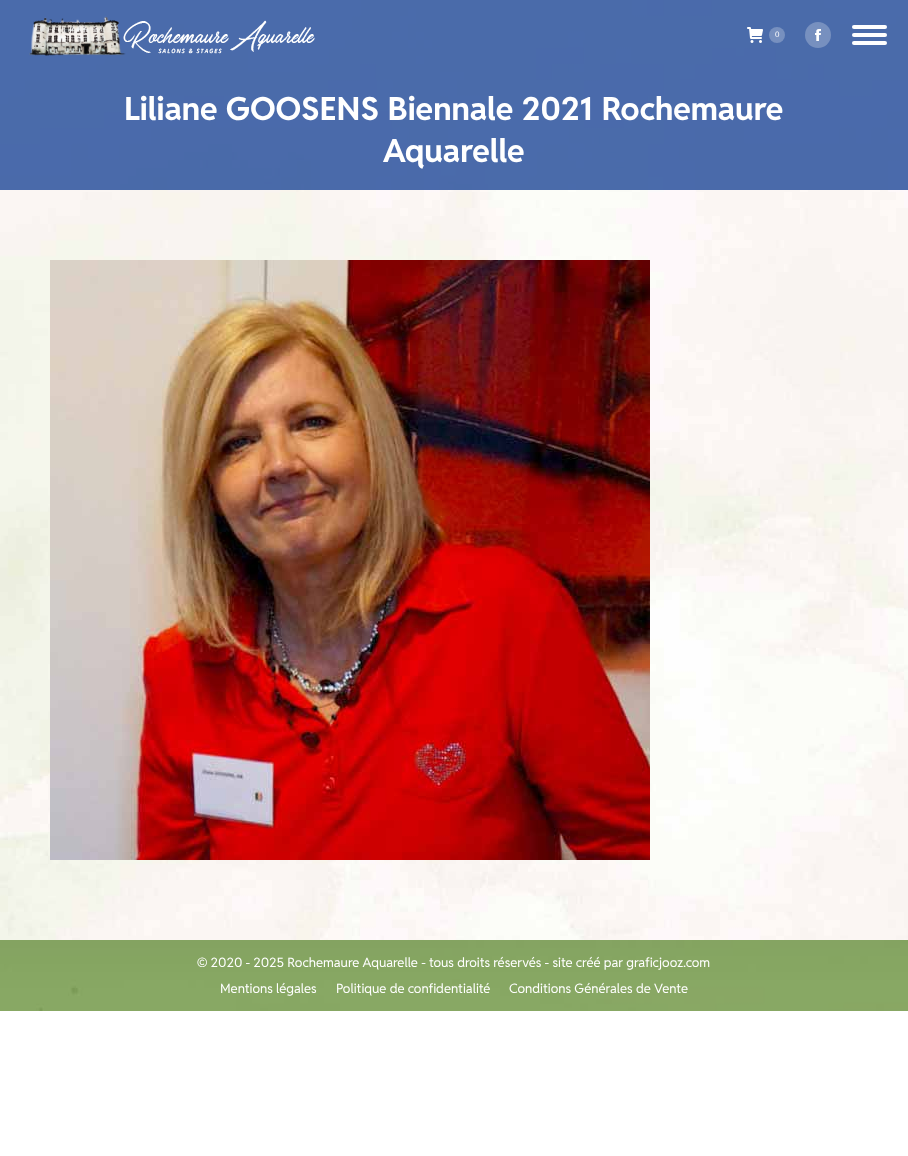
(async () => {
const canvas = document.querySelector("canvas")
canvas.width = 908
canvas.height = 1156
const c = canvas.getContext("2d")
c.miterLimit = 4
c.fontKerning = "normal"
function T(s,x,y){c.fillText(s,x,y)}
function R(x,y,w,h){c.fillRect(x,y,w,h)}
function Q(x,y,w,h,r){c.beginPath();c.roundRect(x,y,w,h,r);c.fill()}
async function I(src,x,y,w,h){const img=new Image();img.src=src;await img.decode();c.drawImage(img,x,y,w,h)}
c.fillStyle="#fff"
R(0,0,908,1156)
await I("1.png",0,0,908,940)
c.fillStyle="#2a519cd9"
R(0,0,908,190)
await I("2.png",29,16,286,40)
await I("3.png",747,27,16,16)
c.fillStyle="#7790bf"
c.beginPath()
c.arc(777,35,8,0,7)
c.fill()
c.font="8px Liberation Sans"
c.fillStyle="#fff"
T("0",775,37)
c.fillStyle="#7790bf"
c.beginPath()
c.arc(818,35,13,0,7)
c.fill()
await I("4.png",815,29,6,12)
c.fillStyle="#fff"
Q(852,25,35,4,2)
Q(852,33,35,4,2)
Q(852,41,35,4,2)
c.font="bold 32px Reddit Sans"
T("Liliane GOOSENS Biennale 2021 Rochemaure",124,120)
T("Aquarelle",383,162)
await I("5.png",50,260,600,600)
await I("6.png",0,940,908,71)
c.font="13px Reddit Sans"
T("© 2020 - 2025 Rochemaure Aquarelle - tous droits réservés - site créé par graficjooz.com",197,967)
T("Mentions légales",220,993)
T("Politique de confidentialité",336,993)
T("Conditions Générales de Vente",509,993)
})()
